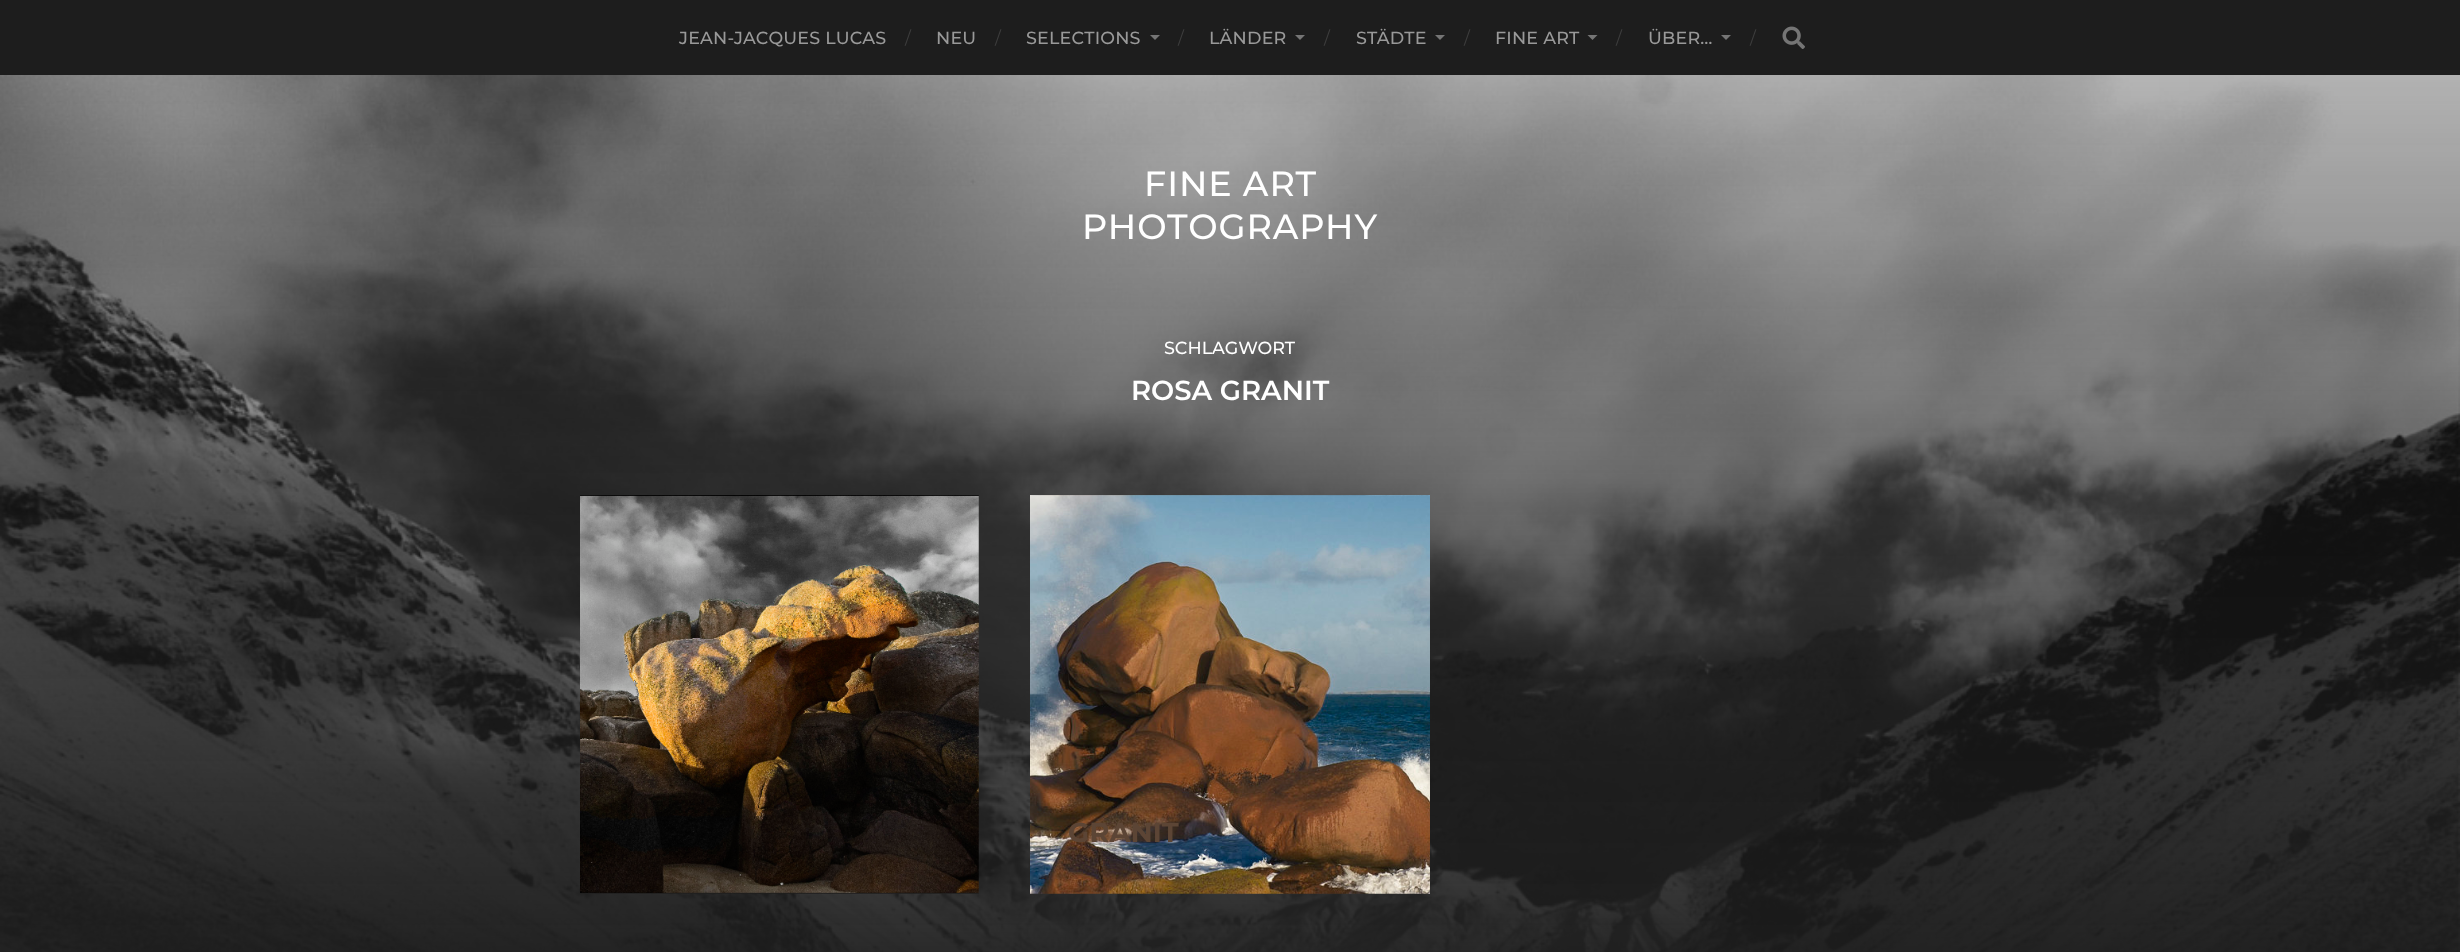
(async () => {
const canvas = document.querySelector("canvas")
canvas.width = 2460
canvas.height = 952
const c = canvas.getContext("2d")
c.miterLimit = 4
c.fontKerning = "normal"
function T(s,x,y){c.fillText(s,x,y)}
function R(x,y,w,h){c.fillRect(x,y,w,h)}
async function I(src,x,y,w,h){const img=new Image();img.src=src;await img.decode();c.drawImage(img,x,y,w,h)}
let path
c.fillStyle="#1d1d1d"
R(0,0,2460,952)
c.letterSpacing="0.2px"
c.font="100 17.5px Montserrat"
c.fillStyle="#999"
T("JEAN-JACQUES LUCAS",679,44)
c.letterSpacing="0px"
c.font="100 17.5px 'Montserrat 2'"
c.fillStyle="#3d3d3d"
T("/",905,44)
c.letterSpacing="0.2px"
c.font="100 17.5px Montserrat"
c.fillStyle="#999"
T("NEU",936,44)
c.letterSpacing="0px"
c.font="100 17.5px 'Montserrat 2'"
c.fillStyle="#3d3d3d"
T("/",995,44)
c.letterSpacing="0.2px"
c.font="100 17.5px Montserrat"
c.fillStyle="#999"
T("SELECTIONS",1026,44)
c.fillStyle="#757575"
path = new Path2D("M1150 35h10l-5 5z")
c.fill(path)
c.letterSpacing="0px"
c.font="100 17.5px 'Montserrat 2'"
c.fillStyle="#3d3d3d"
T("/",1178,44)
c.letterSpacing="0.2px"
c.font="100 17.5px Montserrat"
c.fillStyle="#999"
T("LÄNDER",1209,44)
c.fillStyle="#757575"
path = new Path2D("M1295 35h10l-5 5z")
c.fill(path)
c.letterSpacing="0px"
c.font="100 17.5px 'Montserrat 2'"
c.fillStyle="#3d3d3d"
T("/",1324,44)
c.letterSpacing="0.2px"
c.font="100 17.5px Montserrat"
c.fillStyle="#999"
T("STÄDTE",1356,44)
c.fillStyle="#757575"
path = new Path2D("M1435 35h10l-5 5z")
c.fill(path)
c.letterSpacing="0px"
c.font="100 17.5px 'Montserrat 2'"
c.fillStyle="#3d3d3d"
T("/",1464,44)
c.letterSpacing="0.2px"
c.font="100 17.5px Montserrat"
c.fillStyle="#999"
T("FINE ART",1495,44)
c.fillStyle="#757575"
path = new Path2D("M1587.5 35h10l-5 5z")
c.fill(path)
c.letterSpacing="0px"
c.font="100 17.5px 'Montserrat 2'"
c.fillStyle="#3d3d3d"
T("/",1616,44)
c.letterSpacing="0.2px"
c.font="100 17.5px Montserrat"
c.fillStyle="#999"
T("ÜBER…",1648,44)
c.fillStyle="#757575"
path = new Path2D("M1721 35h10l-5 5z")
c.fill(path)
c.letterSpacing="0px"
c.font="100 17.5px 'Montserrat 2'"
c.fillStyle="#3d3d3d"
T("/",1750,44)
await I("1.png",1782,26,23,23)
await I("2.png",0,75,2460,877)
c.letterSpacing="0.9px"
c.font="100 35px Montserrat"
c.fillStyle="#fff"
T("FINE ART",1144,196)
T("PHOTOGRAPHY",1082,239)
c.letterSpacing="0px"
c.font="100 17.5px Montserrat"
T("SCHLAGWORT",1164,354)
c.font="100 27.5px 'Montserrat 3'"
T("ROSA GRANIT",1131,400)
await I("3.png",580,495,399,399)
await I("4.png",1030,495,400,399)
c.font="100 27.5px 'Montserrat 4'"
c.fillStyle="#5c4535"
T("GRANIT",1068,842)
})()
